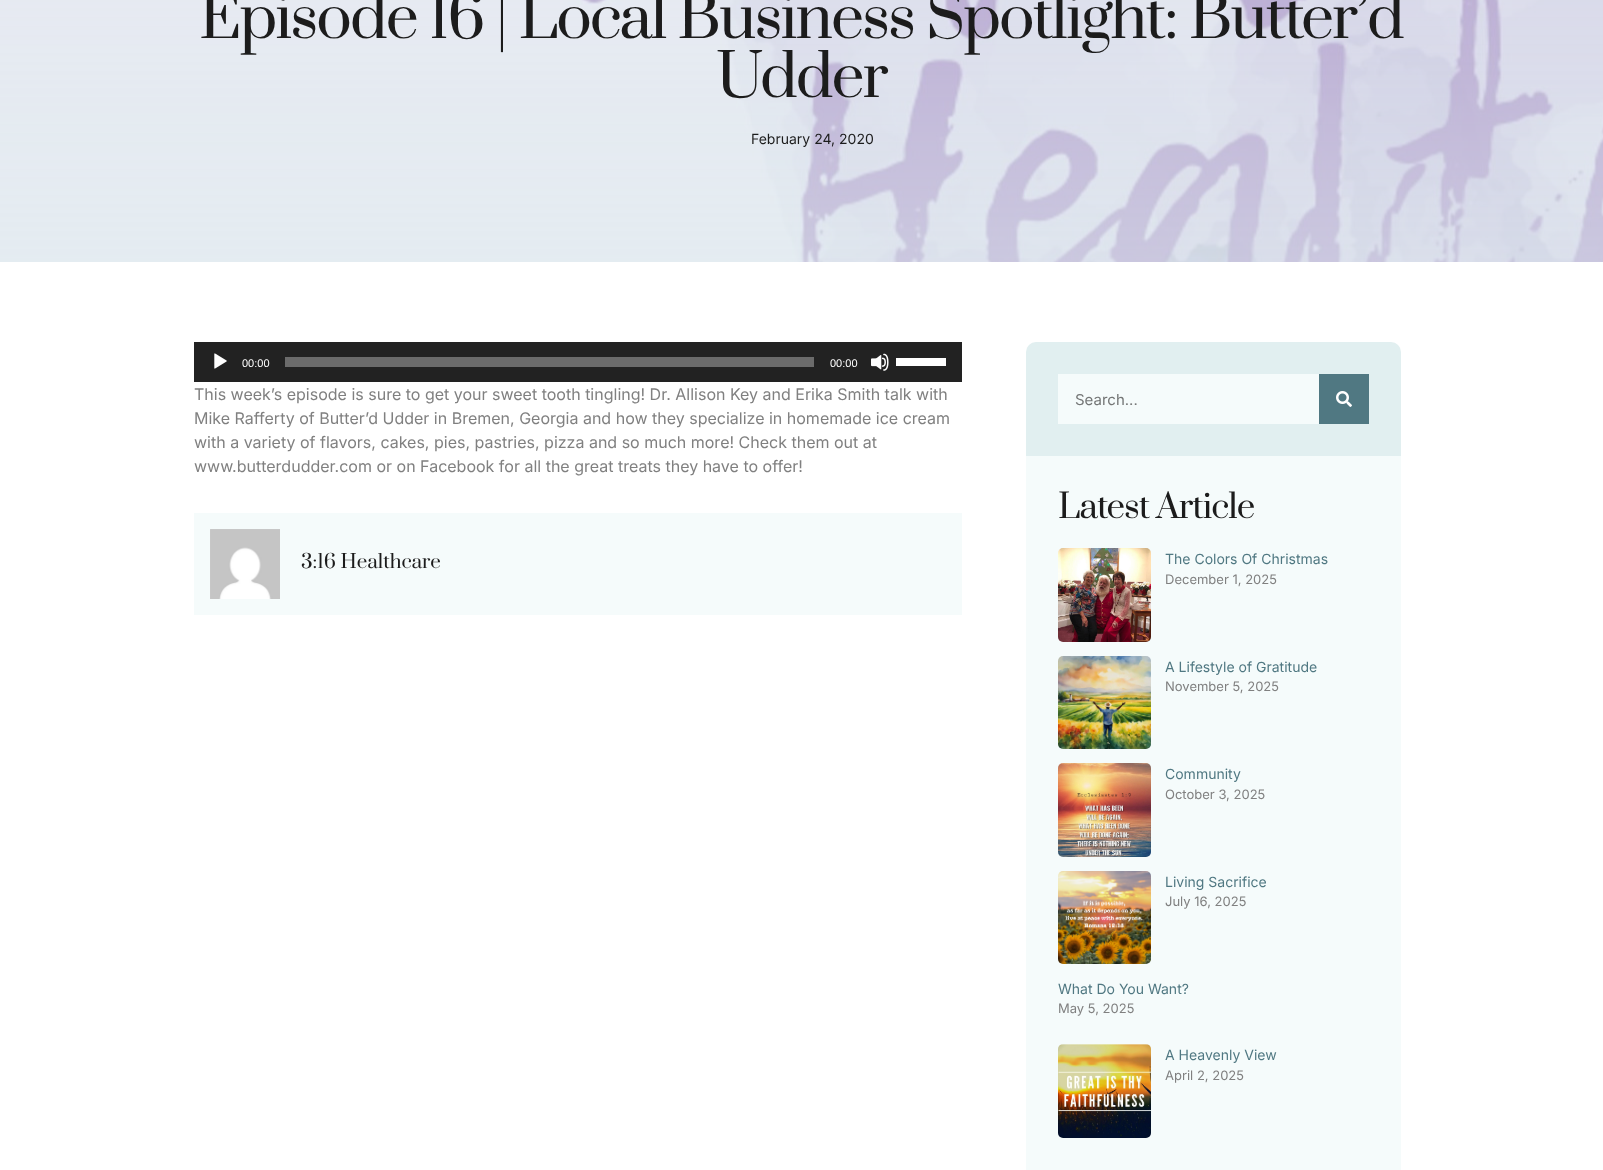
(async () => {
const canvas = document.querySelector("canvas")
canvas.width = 1603
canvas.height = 1170
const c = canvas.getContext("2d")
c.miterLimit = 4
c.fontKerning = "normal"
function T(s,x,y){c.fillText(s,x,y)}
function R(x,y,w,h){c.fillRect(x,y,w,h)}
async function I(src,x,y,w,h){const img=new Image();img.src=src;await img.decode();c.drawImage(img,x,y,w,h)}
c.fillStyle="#fff"
R(0,0,1603,1170)
await I("1.png",0,0,1603,262)
c.letterSpacing="-2px"
c.font="58.9px Prata"
c.fillStyle="#1c1c1c"
T("Episode 16 | Local Business Spotlight: Butter’d",199,38)
T("Udder",716,97)
c.letterSpacing="0px"
c.font="14px Inter"
T("February 24, 2020",751,144)
c.fillStyle="#222"
R(194,342,768,40)
await I("2.png",214,353,13,16)
c.font="11px Liberation Sans"
c.fillStyle="#fff"
T("00:00",242,367)
c.fillStyle="#6b6b6b"
R(285,357,529,10)
c.fillStyle="#fff"
T("00:00",830,367)
await I("3.png",871,353,18,18)
R(896,358,50,8)
c.font="16px Inter"
c.fillStyle="#808080"
T("This week’s episode is sure to get your sweet tooth tingling! Dr. Allison Key and Erika Smith talk with",194,400)
T("Mike Rafferty of Butter’d Udder in Bremen, Georgia and how they specialize in homemade ice cream",194,424)
T("with a variety of flavors, cakes, pies, pastries, pizza and so much more! Check them out at",194,448)
T("www.butterdudder.com or on Facebook for all the great treats they have to offer!",194,472)
c.fillStyle="#f5fbfb"
R(194,513,768,102)
await I("4.png",210,529,70,70)
c.font="18.75px Prata"
c.fillStyle="#1c1c1c"
T("3:16 Healthcare",301,568)
c.fillStyle="#e1eff0"
c.beginPath()
c.roundRect(1026,342,375,114,[10,10,0,0])
c.fill()
c.fillStyle="#f5fbfb"
R(1058,374,261,50)
c.font="15px Inter"
c.fillStyle="#737575"
T("Search...",1075,405)
c.fillStyle="#507882"
R(1319,374,50,50)
await I("5.png",1336,391,16,16)
c.fillStyle="#f5fbfb"
R(1026,456,375,714)
c.letterSpacing="-1px"
c.font="33px Prata"
c.fillStyle="#1c1c1c"
T("Latest Article",1058,518)
await I("6.png",1058,548,93,94)
c.letterSpacing="0px"
c.font="14px Inter"
c.fillStyle="#507882"
T("The Colors Of Christmas",1165,564)
c.font="13px Inter"
c.fillStyle="#808080"
T("December 1, 2025",1165,584)
await I("7.png",1058,656,93,93)
c.font="14px Inter"
c.fillStyle="#507882"
T("A Lifestyle of Gratitude",1165,672)
c.font="13px Inter"
c.fillStyle="#808080"
T("November 5, 2025",1165,691)
await I("8.png",1058,763,93,94)
c.font="14px Inter"
c.fillStyle="#507882"
T("Community",1165,779)
c.font="13px Inter"
c.fillStyle="#808080"
T("October 3, 2025",1165,799)
await I("9.png",1058,871,93,93)
c.font="14px Inter"
c.fillStyle="#507882"
T("Living Sacrifice",1165,887)
c.font="13px Inter"
c.fillStyle="#808080"
T("July 16, 2025",1165,906)
c.font="14px Inter"
c.fillStyle="#507882"
T("What Do You Want?",1058,994)
c.font="13px Inter"
c.fillStyle="#808080"
T("May 5, 2025",1058,1013)
await I("10.png",1058,1044,93,94)
c.font="14px Inter"
c.fillStyle="#507882"
T("A Heavenly View",1165,1060)
c.font="13px Inter"
c.fillStyle="#808080"
T("April 2, 2025",1165,1080)
})()
